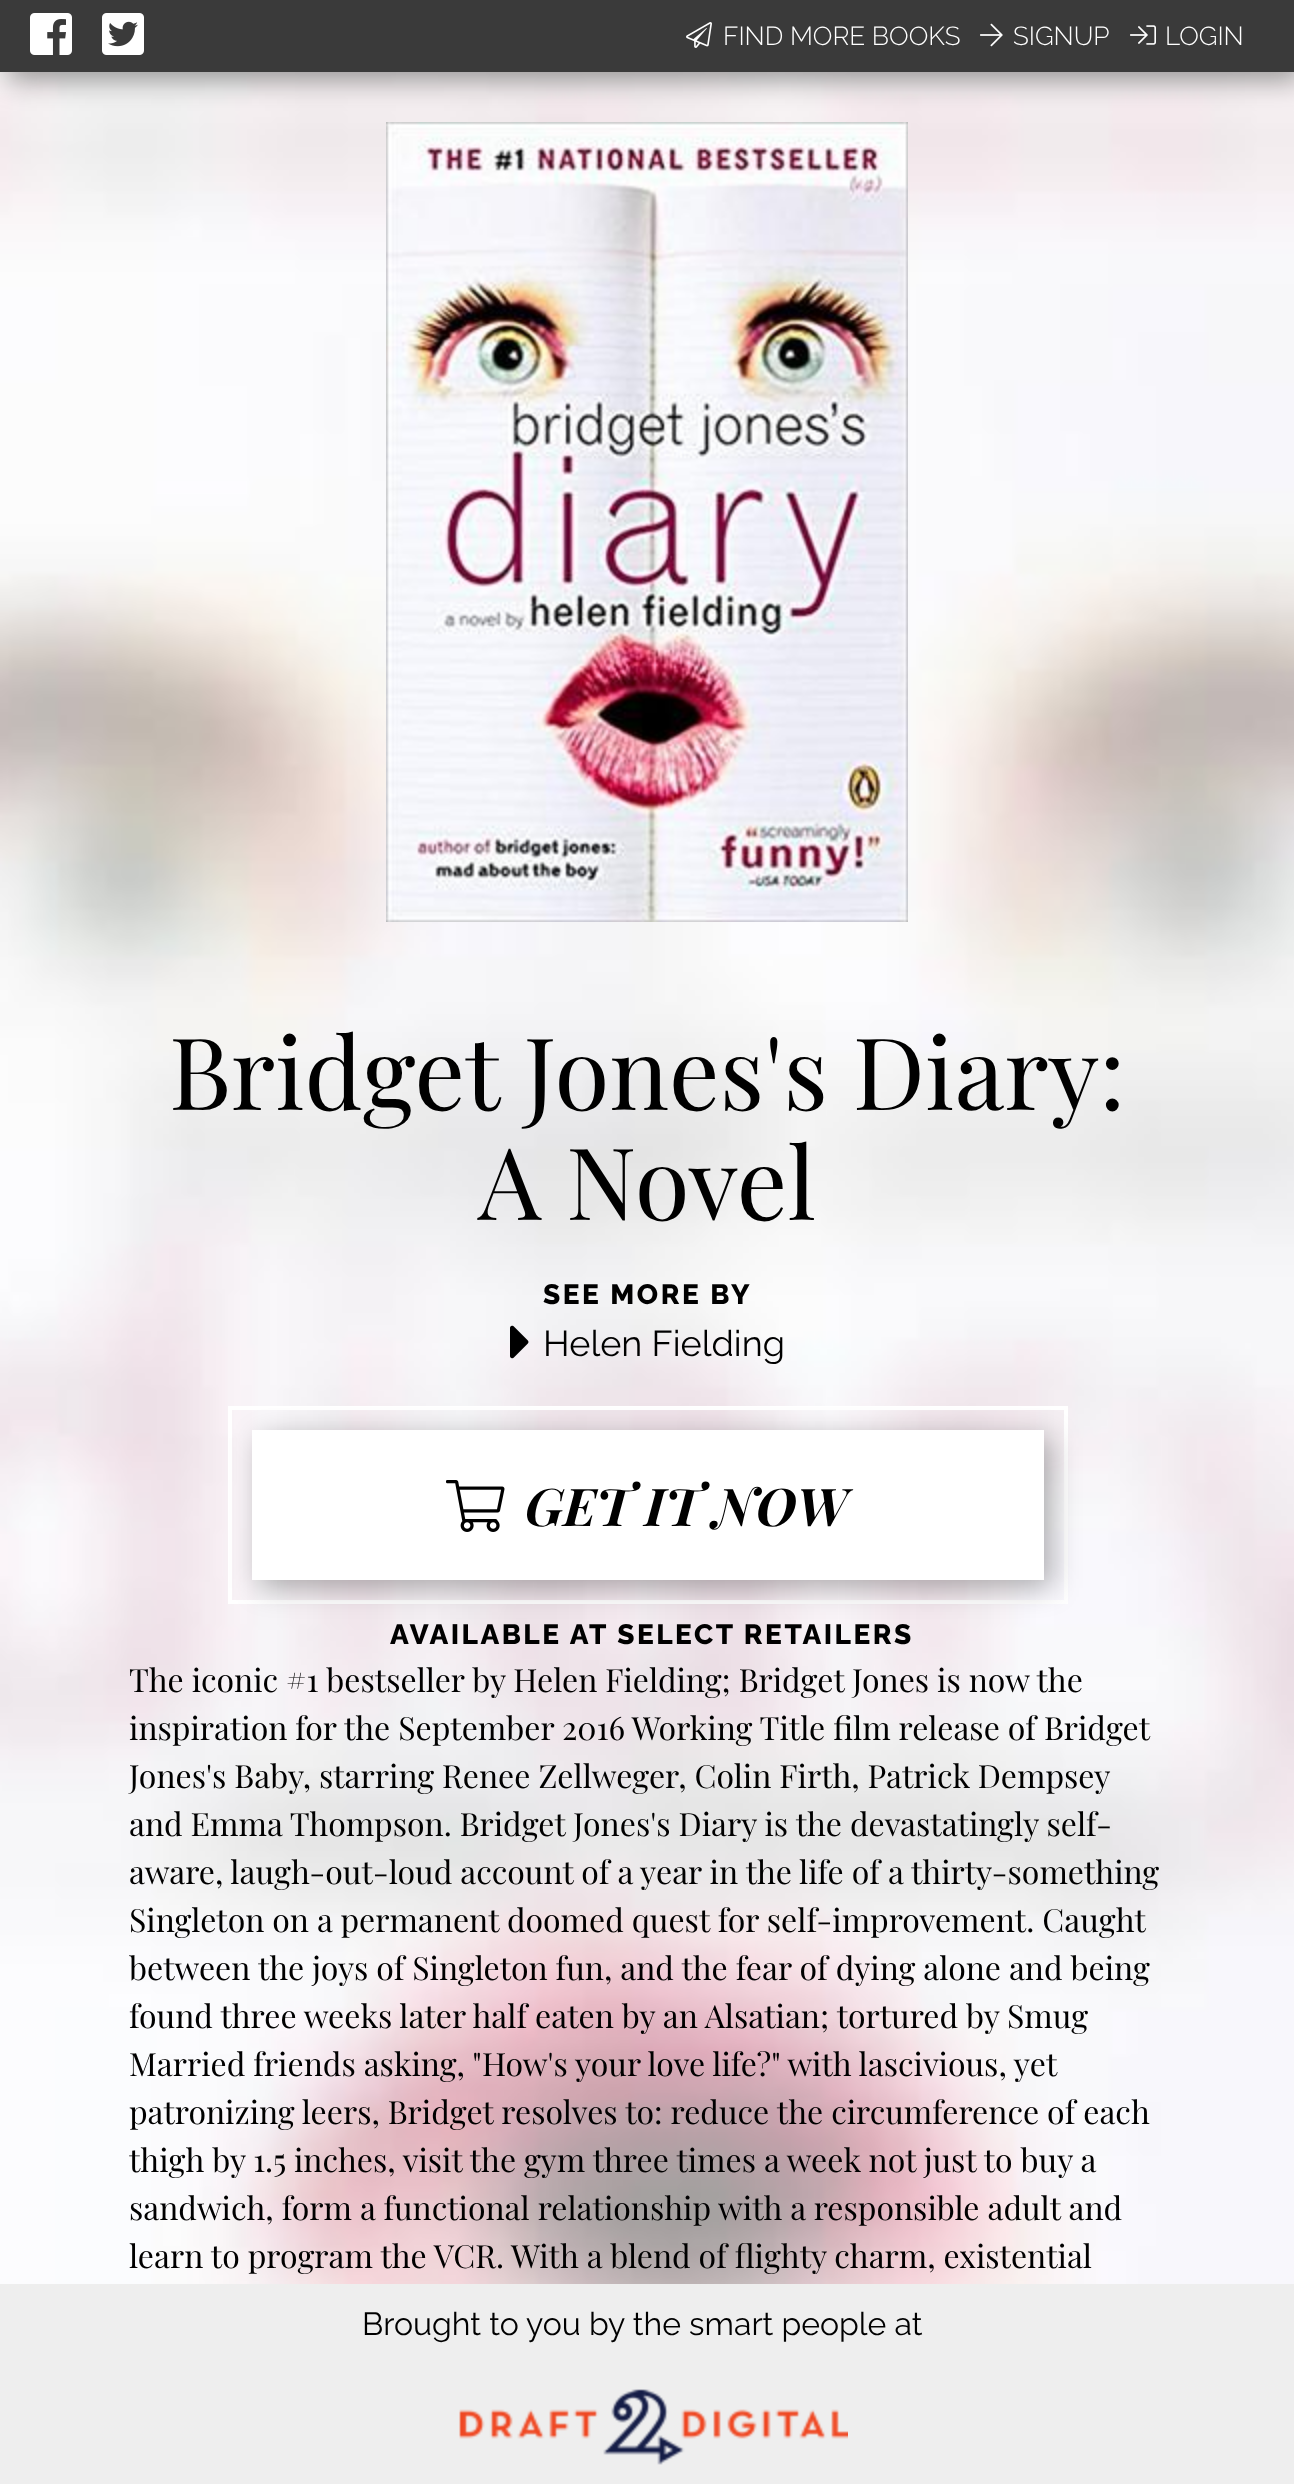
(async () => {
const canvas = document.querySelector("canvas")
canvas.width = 1294
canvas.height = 2484
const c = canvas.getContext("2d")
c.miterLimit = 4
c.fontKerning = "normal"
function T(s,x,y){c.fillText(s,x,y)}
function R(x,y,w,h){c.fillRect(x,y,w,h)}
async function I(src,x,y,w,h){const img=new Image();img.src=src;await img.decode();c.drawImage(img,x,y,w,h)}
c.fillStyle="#fff"
R(0,0,1294,2484)
await I("1.png",0,72,1294,2212)
await I("7.png",386,122,522,800)
c.fillStyle="#00000066"
c.filter="blur(14px)"
c.beginPath()
c.rect(8,8,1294,72)
c.fill()
c.filter="none"
c.fillStyle="#3a3a3a"
R(0,0,1294,72)
await I("2.png",30,13,42,42)
await I("3.png",102,13,42,42)
await I("4.png",686,22,26,26)
c.font="300 26px Raleway"
c.fillStyle="#fff"
T("FIND MORE BOOKS",723,45)
await I("5.png",980,23,23,24)
T("SIGNUP",1013,45)
await I("6.png",1130,25,26,20)
T("LOGIN",1165,45)
c.font="100px Playfair Display"
c.fillStyle="#000"
T("Bridget Jones's Diary:",169,1110)
T("A Novel",478,1220)
await I("8.png",510,1325,19,34)
c.letterSpacing="2.5px"
c.font="800 28px Raleway"
T("SEE MORE BY",543,1304)
c.letterSpacing="0px"
c.font="36px Raleway"
T("Helen Fielding",543,1356)
c.strokeStyle="#fff"
c.lineWidth=4
c.strokeRect(230,1408,836,194)
c.fillStyle="#0000004d"
c.filter="blur(14px)"
c.beginPath()
c.rect(260,1438,792,150)
c.fill()
c.filter="none"
c.fillStyle="#fff"
R(252,1430,792,150)
await I("9.png",446,1480,59,52)
c.font="italic bold 52px Playfair Display"
c.fillStyle="#000"
T("GET IT NOW",525,1526)
c.letterSpacing="2.5px"
c.font="800 28px Raleway"
T("AVAILABLE AT SELECT RETAILERS",390,1644)
c.letterSpacing="0px"
c.font="32px Playfair Display"
T("The iconic #1 bestseller by Helen Fielding; Bridget Jones is now the",129,1692)
T("inspiration for the September 2016 Working Title film release of Bridget",129,1740)
T("Jones's Baby, starring Renee Zellweger, Colin Firth, Patrick Dempsey",129,1788)
T("and Emma Thompson. Bridget Jones's Diary is the devastatingly self-",129,1836)
T("aware, laugh-out-loud account of a year in the life of a thirty-something",129,1884)
T("Singleton on a permanent doomed quest for self-improvement. Caught",129,1932)
T("between the joys of Singleton fun, and the fear of dying alone and being",129,1980)
T("found three weeks later half eaten by an Alsatian; tortured by Smug",129,2028)
T("Married friends asking, \"How's your love life?\" with lascivious, yet",129,2076)
T("patronizing leers, Bridget resolves to: reduce the circumference of each",129,2124)
T("thigh by 1.5 inches, visit the gym three times a week not just to buy a",129,2172)
T("sandwich, form a functional relationship with a responsible adult and",129,2220)
T("learn to program the VCR. With a blend of flighty charm, existential",129,2268)
c.fillStyle="#eee"
R(0,2284,1294,200)
c.font="32px Raleway"
c.fillStyle="#000"
T("Brought to you by the smart people at",362,2335)
await I("10.png",459,2389,389,76)
})()
